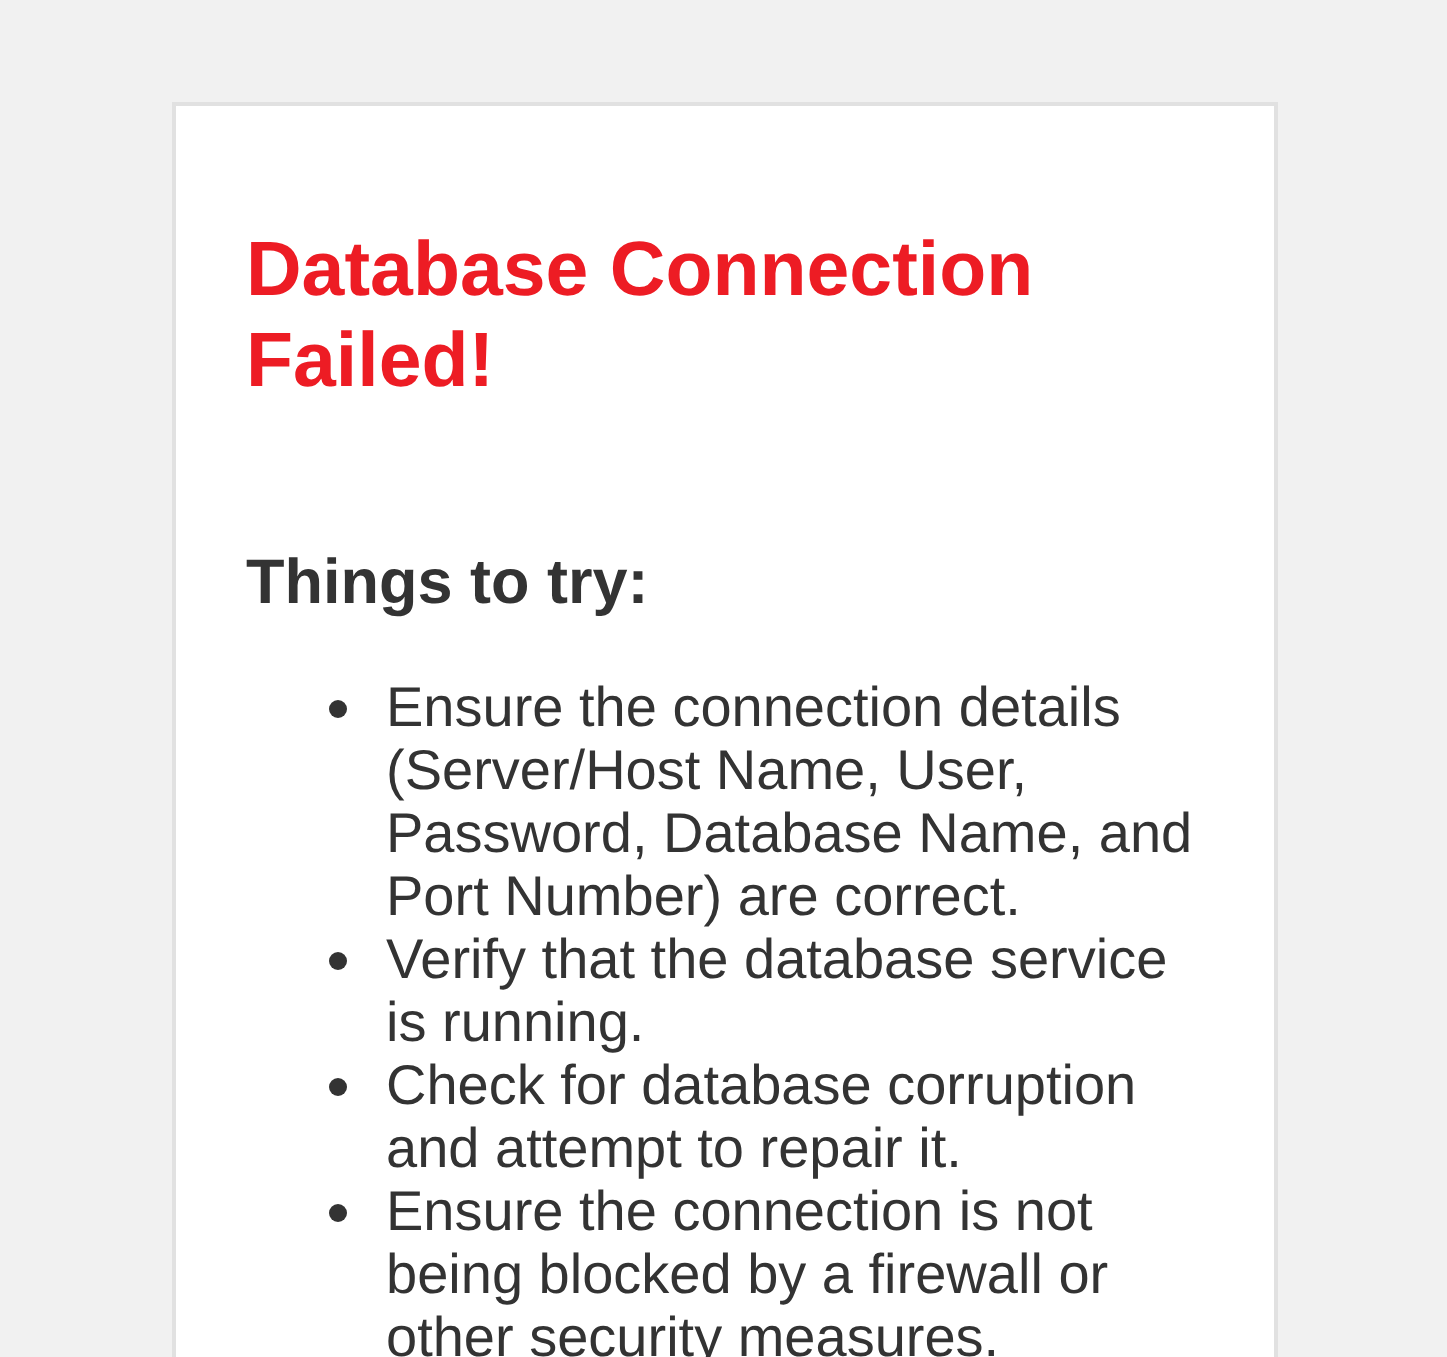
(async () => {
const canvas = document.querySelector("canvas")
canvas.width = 1447
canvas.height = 1357
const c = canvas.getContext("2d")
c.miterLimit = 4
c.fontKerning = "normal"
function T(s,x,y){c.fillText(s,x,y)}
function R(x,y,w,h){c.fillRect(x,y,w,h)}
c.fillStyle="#f1f1f1"
R(0,0,1447,1357)
c.fillStyle="#fff"
c.beginPath()
c.rect(174,104,1102,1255)
c.fill()
c.strokeStyle="#e1e1e1"
c.lineWidth=4
c.stroke()
c.font="bold 77px Liberation Sans"
c.fillStyle="#ed1c24"
T("Database Connection",246,295)
T("Failed!",246,386)
c.font="bold 63px Liberation Sans"
c.fillStyle="#333"
T("Things to try:",246,603)
c.beginPath()
c.arc(338,709,9,0,7)
c.fill()
c.font="56px Liberation Sans"
T("Ensure the connection details",386,726)
T("(Server/Host Name, User,",386,789)
T("Password, Database Name, and",386,852)
T("Port Number) are correct.",386,915)
c.beginPath()
c.arc(338,961,9,0,7)
c.fill()
T("Verify that the database service",386,978)
T("is running.",386,1041)
c.beginPath()
c.arc(338,1087,9,0,7)
c.fill()
T("Check for database corruption",386,1104)
T("and attempt to repair it.",386,1167)
c.beginPath()
c.arc(338,1213,9,0,7)
c.fill()
T("Ensure the connection is not",386,1230)
T("being blocked by a firewall or",386,1293)
T("other security measures.",386,1356)
})()
